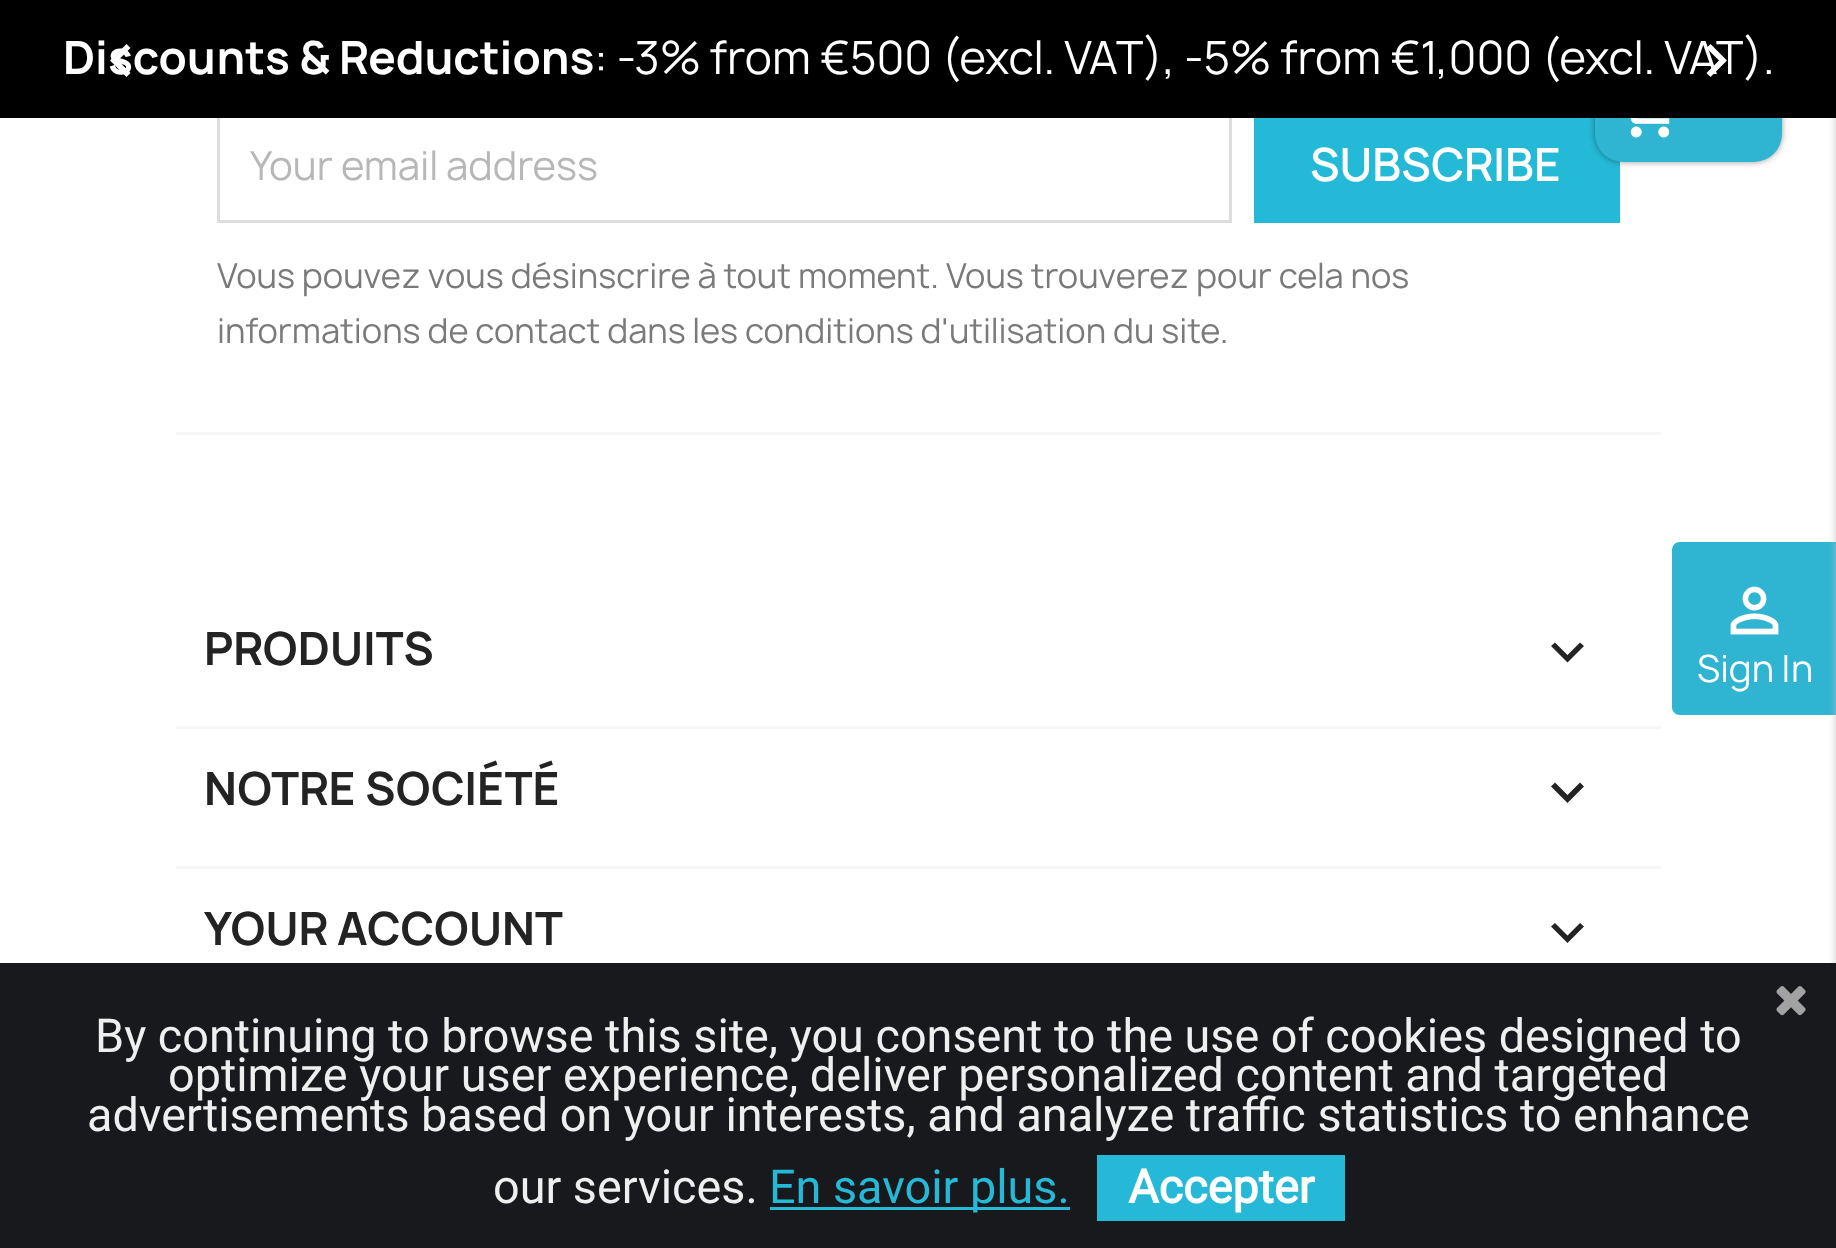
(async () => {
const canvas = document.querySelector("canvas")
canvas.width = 1836
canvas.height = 1248
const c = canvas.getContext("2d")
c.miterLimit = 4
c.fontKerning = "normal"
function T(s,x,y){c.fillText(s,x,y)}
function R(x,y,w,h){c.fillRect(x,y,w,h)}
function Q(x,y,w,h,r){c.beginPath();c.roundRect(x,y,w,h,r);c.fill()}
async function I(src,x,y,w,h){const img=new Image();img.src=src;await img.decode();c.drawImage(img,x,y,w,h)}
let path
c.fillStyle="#fff"
R(0,0,1836,1248)
c.fillStyle="#24b9d7"
R(1254,118,366,105)
c.fillStyle="#00000066"
c.filter="blur(3px)"
c.beginPath()
c.roundRect(1595,55,187,107,28)
c.fill()
c.filter="none"
c.fillStyle="#2fb5d2"
Q(1595,55,187,107,28)
path = new Path2D("M1680 542h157v173h-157c-4.5 0-8-3.5-8-8v-157c0-4.5 3.5-8 8-8z")
c.fill(path)
c.fillStyle="#bbb"
c.filter="blur(4px)"
c.beginPath()
c.roundRect(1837,-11,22,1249,11)
c.fill()
c.filter="none"
c.strokeStyle="#ddd"
c.lineWidth=3
c.strokeRect(218.5,108.5,1012,113)
c.fillStyle="#000"
R(0,0,1836,118)
c.font="bold 44px Manrope"
c.fillStyle="#fff"
T("Discounts & Reductions",63,74)
c.font="44px Manrope"
T(": -3% from €500 (excl. VAT), -5% from €1,000 (excl. VAT).",594,74)
path = new Path2D("M130.5 48l-12.5 12.5l12.5 12.5l-4 4l-16.5-16.5l16.5-16.5z")
c.fill(path)
path = new Path2D("M1710.5 44l16.5 16.5l-16.5 16.5l-4-4l12.5-12.5l-12.5-12.5z")
c.fill(path)
await I("1.png",1630,118,40,20)
await I("2.png",1730,586,49,49)
c.font="36px Manrope"
T("Sign In",1697,682)
c.fillStyle="#f6f6f6"
R(176,432,1485,3)
c.font="38.5px Manrope"
c.fillStyle="#b7b7b7"
T("Your email address",250,180)
c.font="600 44px Manrope"
c.fillStyle="#fff"
T("SUBSCRIBE",1310,181)
c.font="33px Manrope"
c.fillStyle="#7a7a7a"
T("Vous pouvez vous désinscrire à tout moment. Vous trouverez pour cela nos",217,288)
T("informations de contact dans les conditions d'utilisation du site.",217,343)
c.fillStyle="#f6f6f6"
R(176,726,1485,3)
c.font="bold 44px Manrope"
c.fillStyle="#232323"
T("PRODUITS",204,665)
path = new Path2D("M1555 642.5l12.5 12.5l12.5-12.5l4 3.5l-16.5 16.5l-16.5-16.5z")
c.fill(path)
c.fillStyle="#f6f6f6"
R(176,866,1485,3)
c.fillStyle="#232323"
T("NOTRE SOCIÉTÉ",204,805)
path = new Path2D("M1555 782.5l12.5 12.5l12.5-12.5l4 4l-16.5 16.5l-16.5-16.5z")
c.fill(path)
T("YOUR ACCOUNT",204,945)
path = new Path2D("M1555 923l12.5 12.5l12.5-12.5l4 3.5l-16.5 16.5l-16.5-16.5z")
c.fill(path)
c.fillStyle="#17191c"
R(0,963,1836,285)
await I("3.png",1776,986,30,30)
c.font="46.75px Roboto"
c.fillStyle="#efefef"
T("By continuing to browse this site, you consent to the use of cookies designed to",95,1052)
T("optimize your user experience, deliver personalized content and targeted",168,1091)
T("advertisements based on your interests, and analyze traffic statistics to enhance",87,1131)
T("our services.",493,1203)
c.fillStyle="#25b9d7"
R(770,1207,300,3)
T("En savoir plus.",769,1203)
R(1097,1155,248,66)
c.font="bold 46.75px Roboto"
c.fillStyle="#fff"
T("Accepter",1128,1203)
})()
